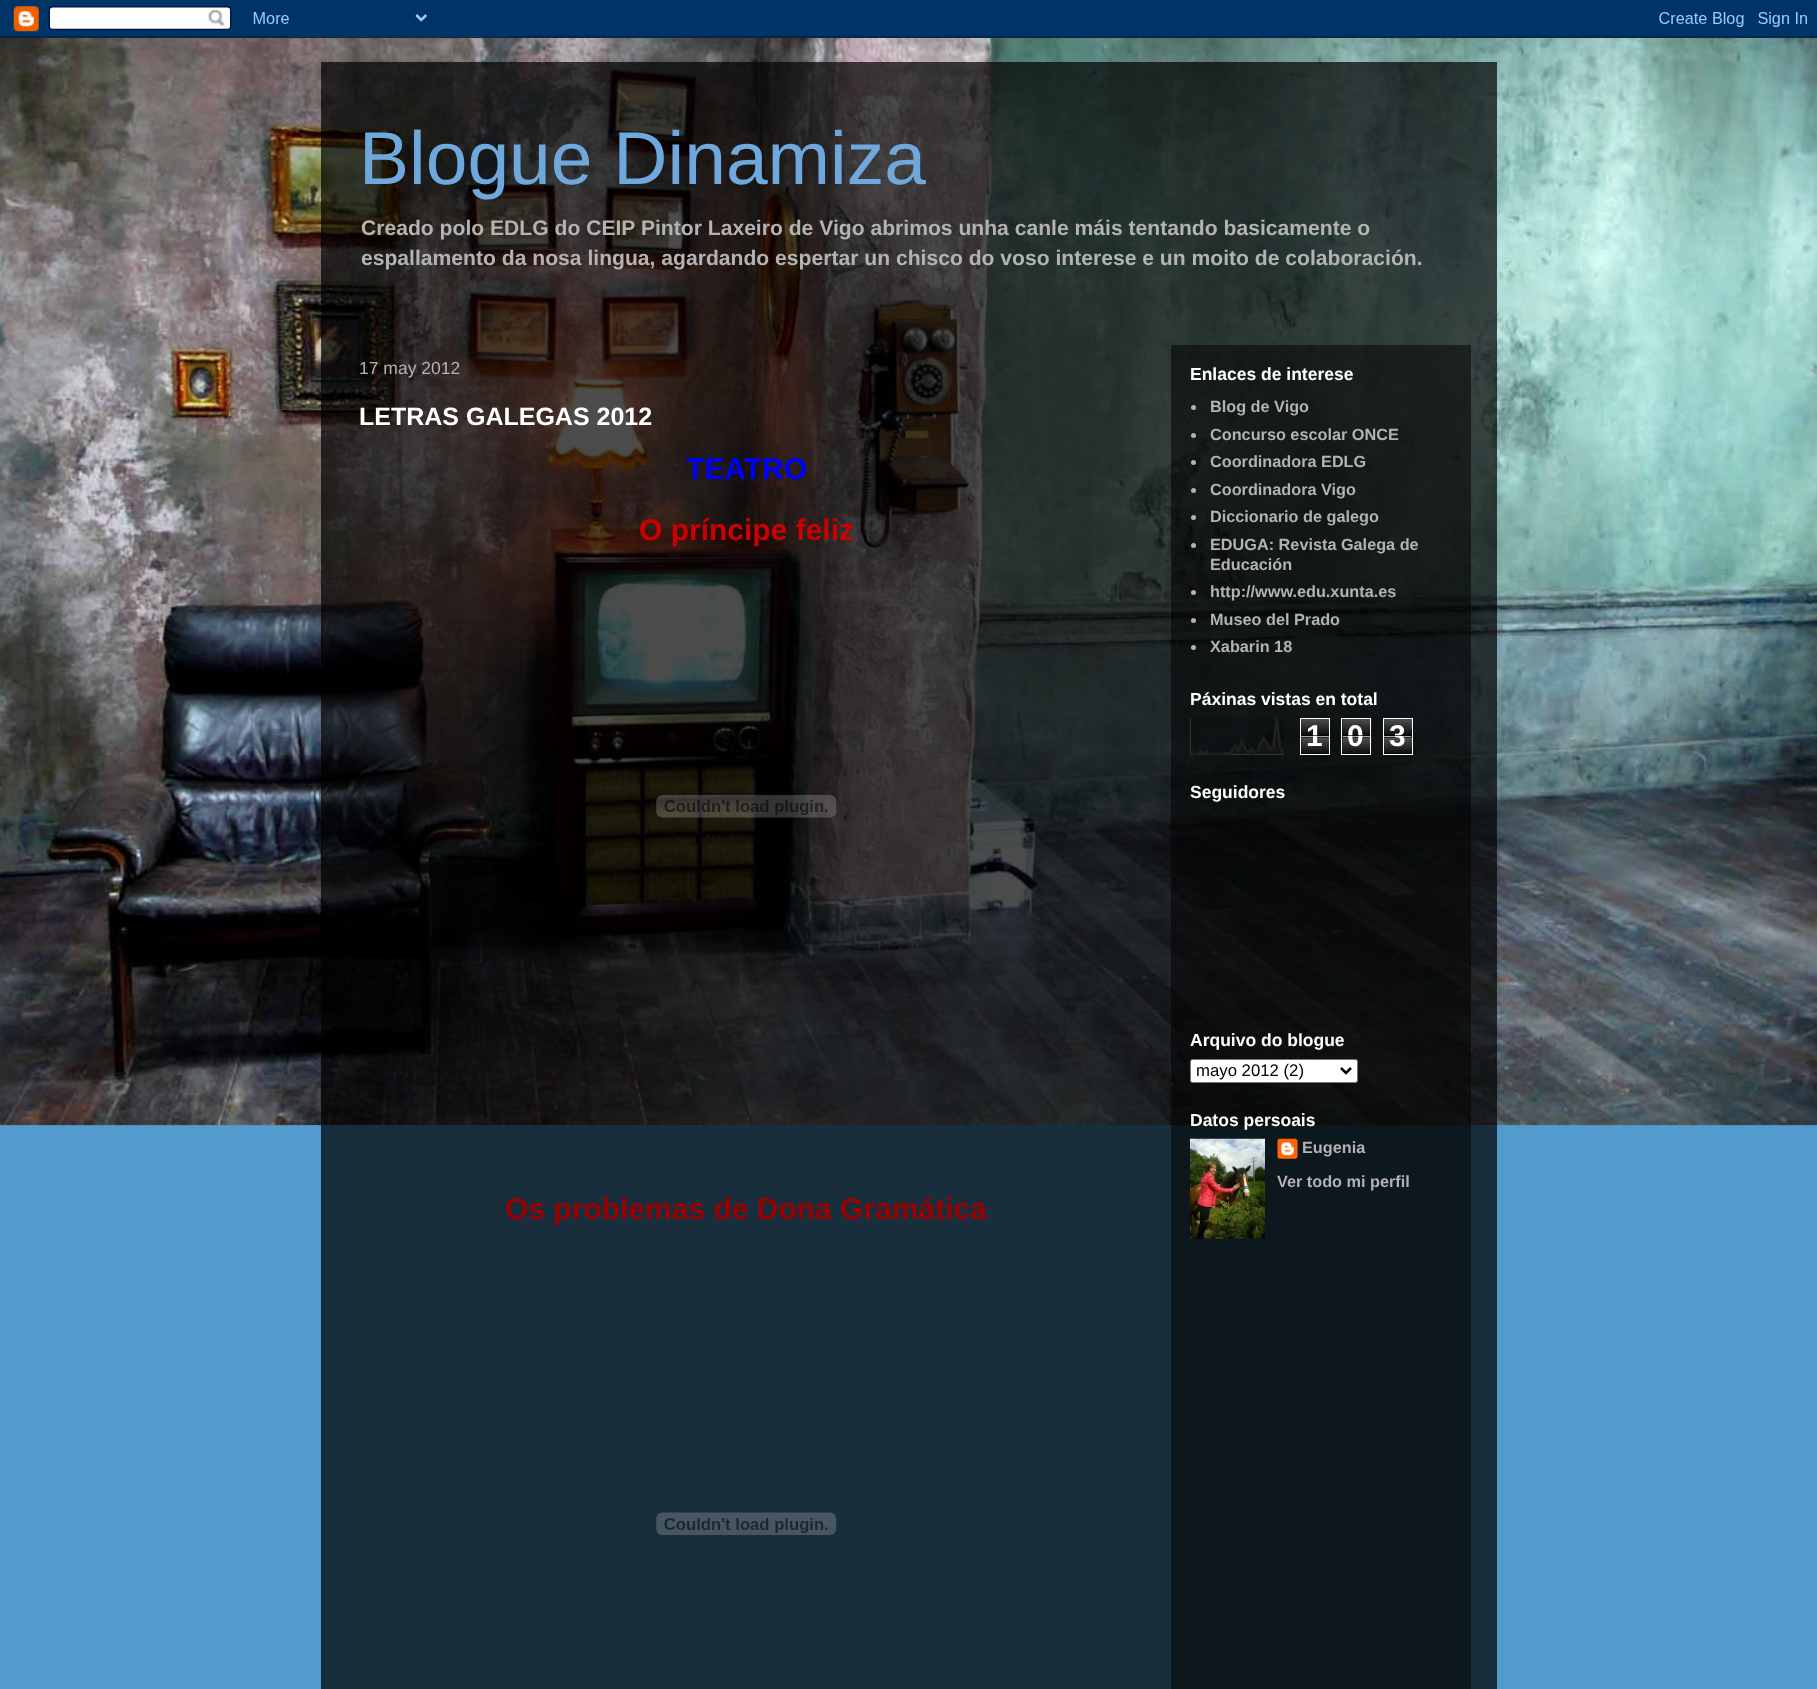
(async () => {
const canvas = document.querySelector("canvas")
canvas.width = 1817
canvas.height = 1689
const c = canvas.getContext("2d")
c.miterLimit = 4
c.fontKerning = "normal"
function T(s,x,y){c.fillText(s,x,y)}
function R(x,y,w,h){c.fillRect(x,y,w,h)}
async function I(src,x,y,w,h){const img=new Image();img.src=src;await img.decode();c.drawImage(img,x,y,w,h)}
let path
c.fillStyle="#539bcd"
R(0,0,1817,1689)
await I("1.png",0,36,1817,1090)
await I("2.png",0,0,1817,38)
c.fillStyle="#000000b3"
R(321,62,1176,1627)
c.font="75px Liberation Sans"
c.fillStyle="#6fa8dc"
T("Blogue Dinamiza",359,184)
c.font="bold 21.12px Liberation Sans"
c.fillStyle="#b3b3b3"
T("Creado polo EDLG do CEIP Pintor Laxeiro de Vigo abrimos unha canle máis tentando basicamente o",361,235)
T("espallamento da nosa lingua, agardando espertar un chisco do voso interese e un moito de colaboración.",361,265)
c.fillStyle="#00000080"
R(1171,345,300,1344)
c.font="17.5px Liberation Sans"
c.fillStyle="#b3b3b3"
T("17 may 2012",359,374)
c.font="bold 25px Liberation Sans"
c.fillStyle="#fff"
T("LETRAS GALEGAS 2012",359,425)
c.font="bold 30px Liberation Sans"
c.fillStyle="#00f"
T("TEATRO",686,479)
c.fillStyle="#c00"
T("O príncipe feliz",639,540)
await I("3.png",656,795,181,23)
c.fillStyle="#900"
T("Os problemas de Dona Gramática",505,1219)
await I("4.png",656,1512,181,23)
c.font="bold 17.5px Liberation Sans"
c.fillStyle="#fff"
T("Enlaces de interese",1190,380)
c.fillStyle="#b3b3b3"
c.beginPath()
c.arc(1193.5,407.5,2.5,0,7)
c.fill()
c.font="bold 16.25px Liberation Sans"
T("Blog de Vigo",1210,412)
c.beginPath()
c.arc(1193.5,435.5,2.5,0,7)
c.fill()
T("Concurso escolar ONCE",1210,440)
c.beginPath()
c.arc(1193.5,462.5,2.5,0,7)
c.fill()
T("Coordinadora EDLG",1210,467)
c.beginPath()
c.arc(1193.5,490.5,2.5,0,7)
c.fill()
T("Coordinadora Vigo",1210,495)
c.beginPath()
c.arc(1193.5,517.5,2.5,0,7)
c.fill()
T("Diccionario de galego",1210,522)
c.beginPath()
c.arc(1193.5,545.5,2.5,0,7)
c.fill()
T("EDUGA: Revista Galega de",1210,550)
T("Educación",1210,570)
c.beginPath()
c.arc(1193.5,592.5,2.5,0,7)
c.fill()
T("http://www.edu.xunta.es",1210,597)
c.beginPath()
c.arc(1193.5,620.5,2.5,0,7)
c.fill()
T("Museo del Prado",1210,625)
c.beginPath()
c.arc(1193.5,647.5,2.5,0,7)
c.fill()
T("Xabarin 18",1210,652)
c.font="bold 17.5px Liberation Sans"
c.fillStyle="#fff"
T("Páxinas vistas en total",1190,705)
await I("5.png",1190,718,94,37)
await I("6.png",1301,719,28,35)
c.strokeStyle="#fff"
c.strokeRect(1300.5,718.5,29,36)
c.font="bold 30px Liberation Sans"
T("1",1306,746)
c.fillStyle="#000000a6"
R(1301,735,28,1)
c.fillStyle="#ffffffa6"
R(1301,736,28,1)
await I("7.png",1342,718,30,37)
c.strokeRect(1341.5,718.5,29,36)
c.fillStyle="#fff"
T("0",1347,746)
c.fillStyle="#000000a6"
R(1343,735,27,1)
c.fillStyle="#ffffffa6"
R(1343,736,27,1)
await I("8.png",1384,719,28,35)
c.strokeRect(1383.5,718.5,29,36)
c.fillStyle="#fff"
T("3",1389,746)
c.fillStyle="#000000a6"
R(1384,735,27,1)
c.fillStyle="#ffffffa6"
R(1384,736,27,1)
c.font="bold 17.5px Liberation Sans"
c.fillStyle="#fff"
T("Seguidores",1190,798)
T("Arquivo do blogue",1190,1046)
c.beginPath()
c.roundRect(1190.5,1059.5,167,23,2)
c.fill()
c.strokeStyle="#767676"
c.stroke()
path = new Path2D("M1341 1068l5 5l5-5")
c.strokeStyle="#000"
c.lineWidth=2.5
c.stroke(path)
c.font="16.75px Liberation Sans"
c.fillStyle="#000"
T("mayo 2012 (2)",1196,1076)
c.font="bold 17.5px Liberation Sans"
c.fillStyle="#fff"
T("Datos persoais",1190,1126)
await I("9.png",1190,1138,75,101)
await I("10.png",1277,1138,21,21)
c.font="bold 16.25px Liberation Sans"
c.fillStyle="#b3b3b3"
T("Eugenia",1302,1153)
T("Ver todo mi perfil",1277,1187)
})()
